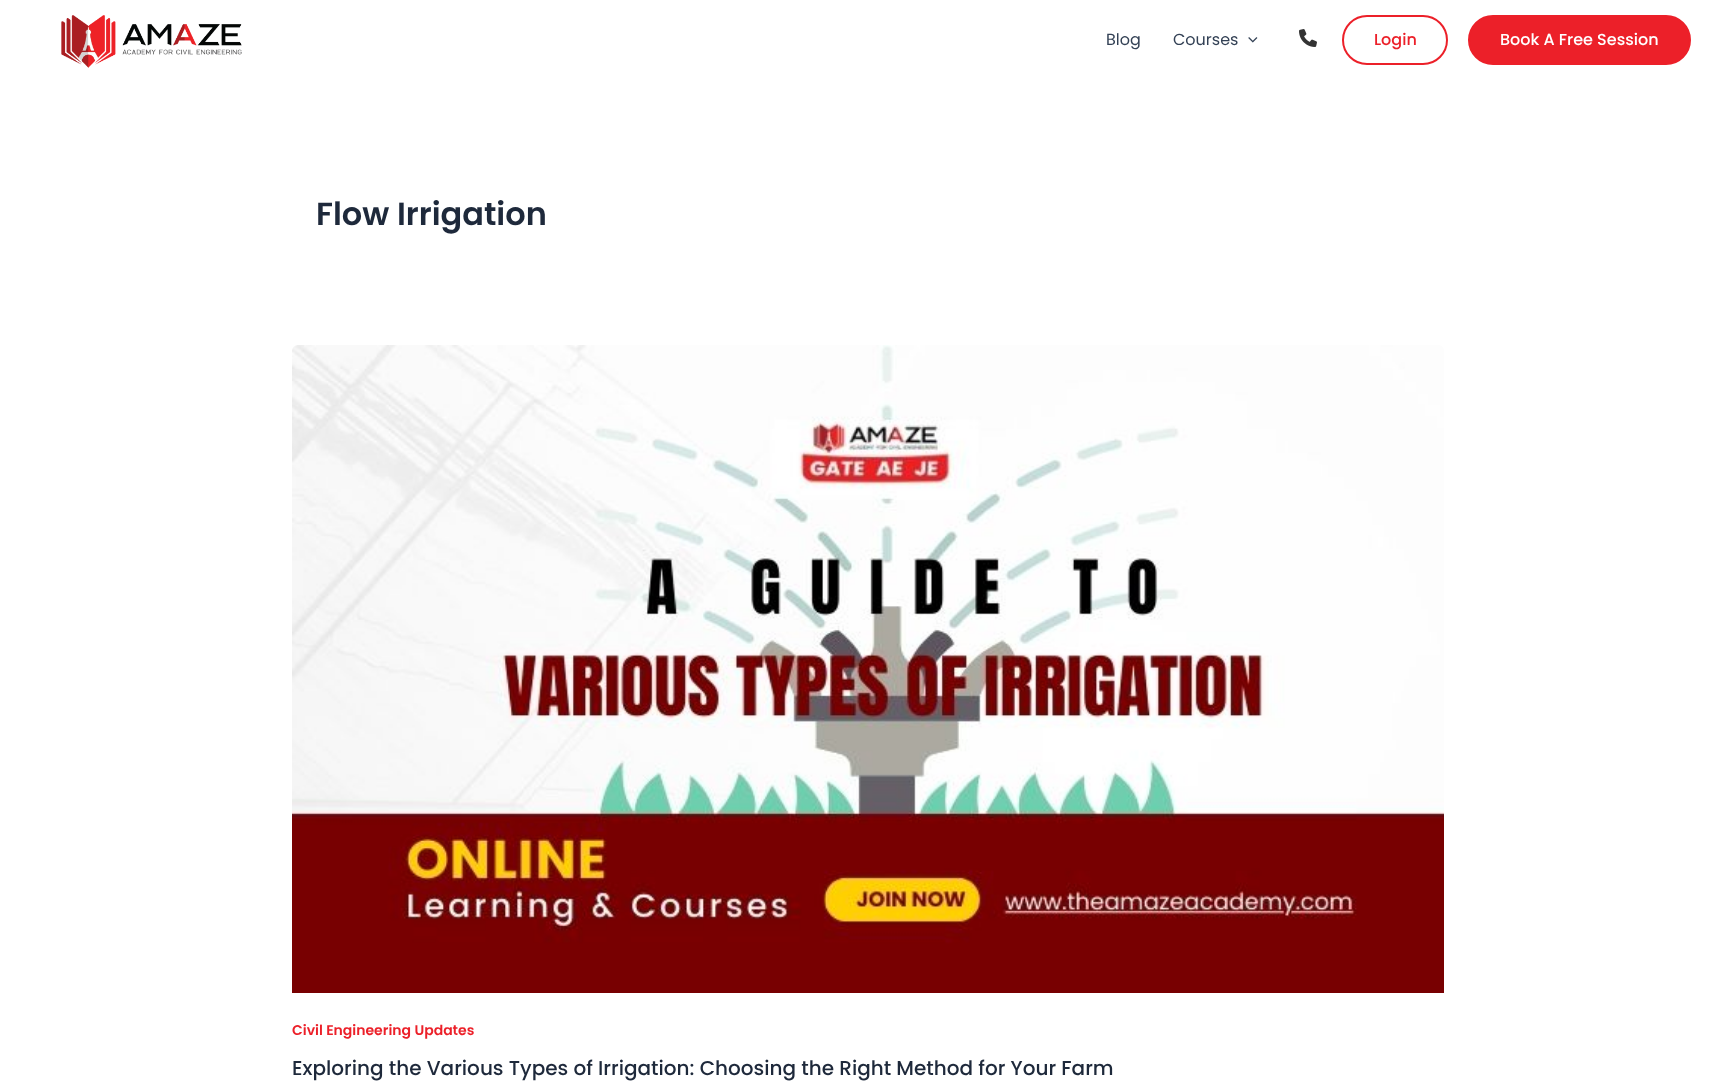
(async () => {
const canvas = document.querySelector("canvas")
canvas.width = 1736
canvas.height = 1085
const c = canvas.getContext("2d")
c.miterLimit = 4
c.fontKerning = "normal"
function T(s,x,y){c.fillText(s,x,y)}
function R(x,y,w,h){c.fillRect(x,y,w,h)}
async function I(src,x,y,w,h){const img=new Image();img.src=src;await img.decode();c.drawImage(img,x,y,w,h)}
c.fillStyle="#fff"
R(0,0,1736,1085)
await I("1.png",61,15,181,53)
c.font="16px Poppins"
c.fillStyle="#334155"
T("Blog",1106,45)
T("Courses",1173,45)
await I("2.png",1248,37,10,6)
await I("3.png",1299,29,18,18)
c.beginPath()
c.roundRect(1343,16,104,48,24)
c.strokeStyle="#ec2029"
c.lineWidth=2
c.stroke()
c.font="500 16px Poppins"
c.fillStyle="#ec2029"
T("Login",1374,45)
c.beginPath()
c.roundRect(1469,16,221,48,24)
c.fill()
c.stroke()
c.fillStyle="#fff"
T("Book A Free Session",1500,45)
c.font="600 32px Poppins"
c.fillStyle="#1e293b"
T("Flow Irrigation",316,225)
await I("4.png",292,345,1152,648)
c.font="600 14px Poppins"
c.fillStyle="#ec2029"
T("Civil Engineering Updates",292,1035)
c.font="500 20px Poppins"
c.fillStyle="#1e293b"
T("Exploring the Various Types of Irrigation: Choosing the Right Method for Your Farm",292,1075)
})()
